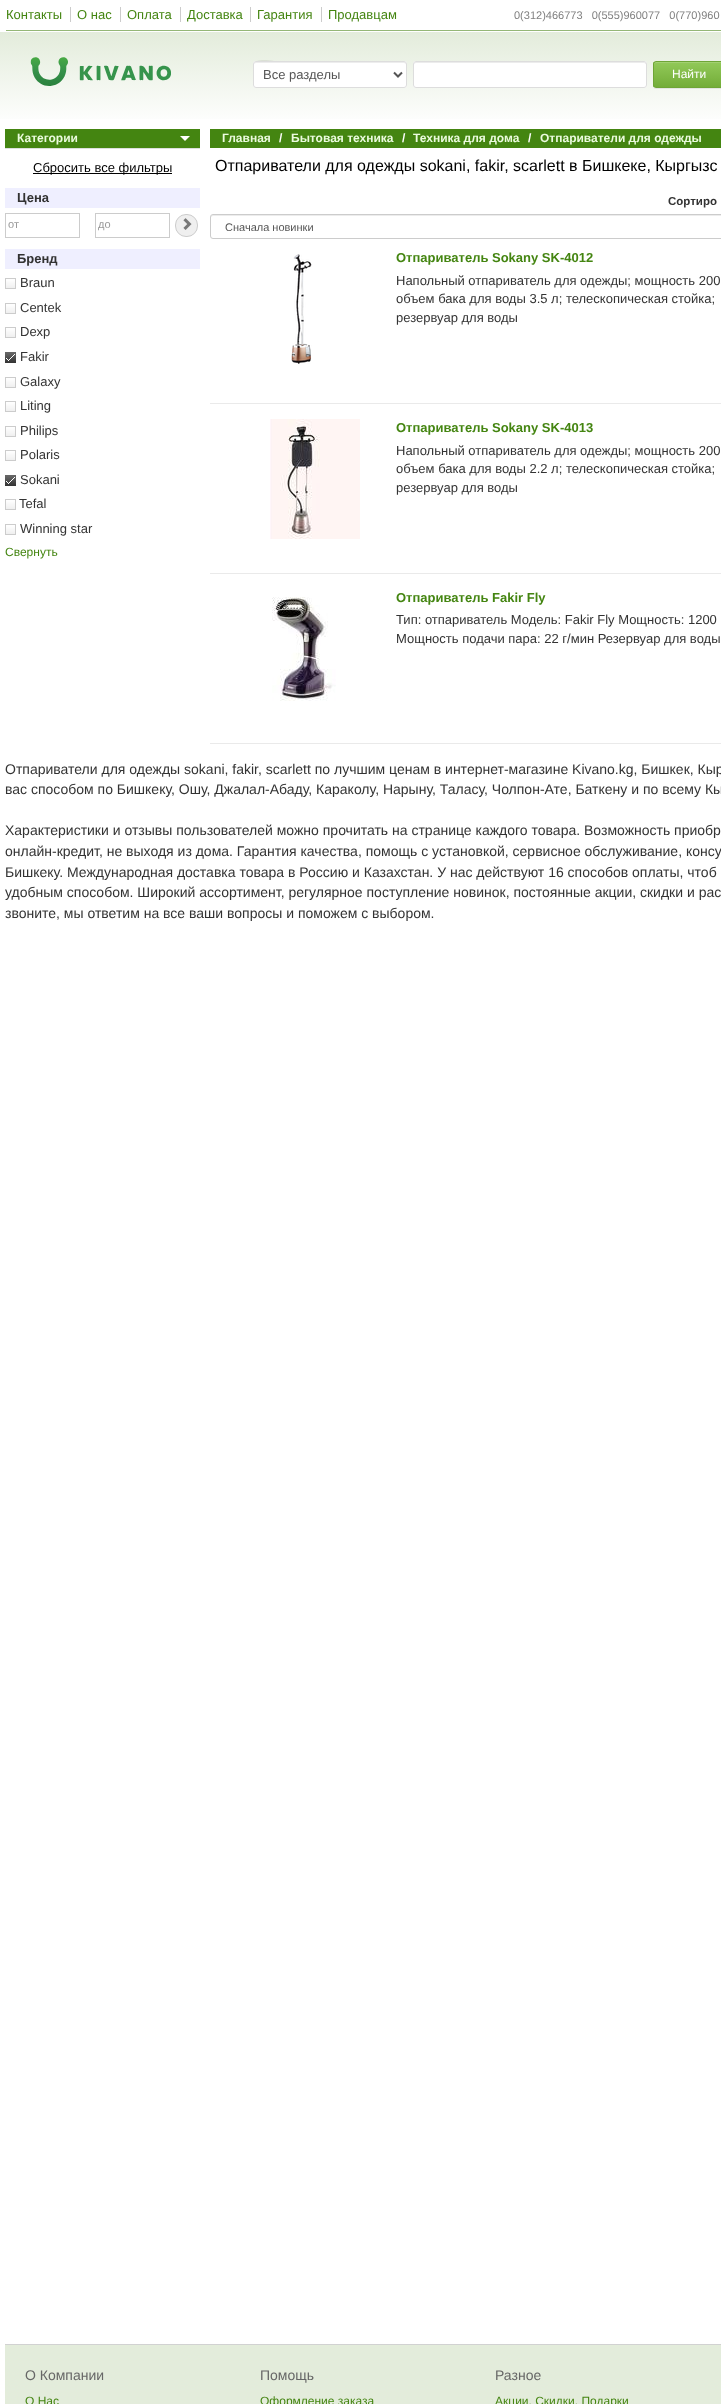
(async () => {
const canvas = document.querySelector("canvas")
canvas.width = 721
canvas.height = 2404
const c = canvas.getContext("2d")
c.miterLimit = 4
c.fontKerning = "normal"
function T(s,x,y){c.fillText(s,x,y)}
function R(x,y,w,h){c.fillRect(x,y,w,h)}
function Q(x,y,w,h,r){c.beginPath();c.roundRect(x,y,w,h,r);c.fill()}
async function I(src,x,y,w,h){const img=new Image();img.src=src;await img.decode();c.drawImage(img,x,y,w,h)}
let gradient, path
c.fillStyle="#fff"
R(0,0,721,2404)
c.fillStyle="#95b777"
R(6,30,715,1)
c.font="13px Liberation Sans"
c.fillStyle="#448511"
T("Контакты",6,19)
c.fillStyle="#ccc"
R(70,7,1,15)
c.fillStyle="#448511"
T("О нас",77,19)
c.fillStyle="#ccc"
R(120,7,1,15)
c.fillStyle="#448511"
T("Оплата",127,19)
c.fillStyle="#ccc"
R(180,7,1,15)
c.fillStyle="#448511"
T("Доставка",187,19)
c.fillStyle="#ccc"
R(250,7,1,15)
c.fillStyle="#448511"
T("Гарантия",257,19)
c.fillStyle="#ccc"
R(321,7,1,15)
c.fillStyle="#448511"
T("Продавцам",328,19)
c.font="11px Liberation Sans"
c.fillStyle="#808080"
T("0(312)466773   0(555)960077   0(770)960",514,19)
gradient = c.createLinearGradient(490,32,490,126)
gradient.addColorStop(0,"#e3ecdb")
gradient.addColorStop(1,"#fff")
c.fillStyle = gradient
R(0,32,721,87)
await I("1.png",30,57,141,29)
c.fillStyle="#fff"
Q(253,61,154,27,3)
c.fillStyle="#00000012"
path = new Path2D("M256 63h148c1 0 2 1 2 2c0-1 0-2-1-3h-124c-3 0-27-6-27 3c0-1 1-2 2-2z")
c.fill(path)
c.beginPath()
c.roundRect(253.5,61.5,153,26,2.5)
c.strokeStyle="#ddd"
c.stroke()
path = new Path2D("M394 72.5l4 4l4-4")
c.strokeStyle="#555"
c.lineWidth=2
c.stroke(path)
c.font="13px Liberation Sans"
c.fillStyle="#555"
T("Все разделы",263,79)
c.fillStyle="#fff"
Q(413,61,234,27,3)
c.fillStyle="#ececec"
path = new Path2D("M416 63h228c1 0 2 1 2 2v-2l-2-1h-228c-2 0-2 2-2 3c0-1 1-2 2-2z")
c.fill(path)
c.beginPath()
c.roundRect(413.5,61.5,233,26,2.5)
c.strokeStyle="#ddd"
c.lineWidth=1
c.stroke()
c.fillStyle="#00000012"
c.filter="blur(0.5px)"
c.beginPath()
c.roundRect(653,62,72,27,3)
c.fill()
c.filter="none"
c.save()
c.beginPath()
c.roundRect(653,61,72,27,3)
c.clip()
gradient = c.createLinearGradient(689,62,689,87)
gradient.addColorStop(0,"#92c959")
gradient.addColorStop(1,"#73ad38")
c.fillStyle = gradient
R(653,62,68,25)
c.restore()
c.fillStyle="#a2d071"
path = new Path2D("M656 63h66c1 0 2 1 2 2c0-6-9-3-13-3h-44c-4 0-13-3-13 3c0-1 1-2 2-2z")
c.fill(path)
c.beginPath()
c.roundRect(653.5,61.5,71,26,2.5)
c.strokeStyle="#6ea536"
c.stroke()
c.font="12px Liberation Sans"
c.fillStyle="#fff"
T("Найти",672,78)
c.fillStyle="#448511"
R(5,129,195,19)
c.font="bold 12px Liberation Sans"
c.fillStyle="#ebfbde"
T("Категории",17,142)
c.fillStyle="#fff"
path = new Path2D("M180 136h10l-5 5z")
c.fill(path)
c.fillStyle="#000"
R(33,173,139,1)
c.fillStyle="#efefff"
R(5,188,195,20)
c.fillStyle="#efefef"
c.beginPath()
c.roundRect(175.5,214.5,22,22,10.5)
c.fill()
c.strokeStyle="#ccc"
c.stroke()
c.fillStyle="#efefff"
R(5,249,195,20)
await I("3.png",5,278,11,11)
await I("3.png",5,303,11,11)
await I("3.png",5,327,11,11)
await I("4.png",5,352,11,11)
await I("3.png",5,377,11,11)
await I("3.png",5,401,11,11)
await I("3.png",5,426,11,11)
await I("3.png",5,450,11,11)
await I("4.png",5,475,11,11)
await I("3.png",5,499,11,11)
c.font="13px Liberation Sans"
c.fillStyle="#333"
T("Tefal",19,508)
c.save()
c.beginPath()
c.rect(5,129,195,20)
c.clip()
c.strokeStyle="#dce0dd"
c.strokeRect(5.5,148.5,194,354)
c.restore()
c.fillStyle="#000"
T("Сбросить все фильтры",33,172)
c.font="bold 13px Liberation Sans"
c.fillStyle="#333"
T("Цена",17,202)
c.strokeRect(5.5,213.5,74,24)
c.font="11px Liberation Sans"
c.fillStyle="#999"
T("от",8,228)
c.strokeRect(95.5,213.5,74,24)
T("до",98,228)
await I("2.png",183,218,9,12)
c.font="bold 13px Liberation Sans"
c.fillStyle="#333"
T("Бренд",17,263)
c.font="13px Liberation Sans"
T("Braun",20,287)
T("Centek",20,312)
T("Dexp",20,336)
T("Fakir",20,361)
T("Galaxy",20,386)
T("Liting",20,410)
T("Philips",20,435)
T("Polaris",20,459)
T("Sokani",20,484)
await I("3.png",5,524,11,11)
T("Winning star",20,533)
c.font="12px Liberation Sans"
c.fillStyle="#448511"
T("Свернуть",5,556)
R(210,129,511,19)
c.font="bold 12px Liberation Sans"
c.fillStyle="#ebfbde"
T("Главная",222,142)
c.fillStyle="#fff"
T("/",279,142)
c.fillStyle="#ebfbde"
T("Бытовая техника",291,142)
c.fillStyle="#fff"
T("/",402,142)
c.fillStyle="#ebfbde"
T("Техника для дома",413,142)
c.fillStyle="#fff"
T("/",528,142)
c.fillStyle="#ebfbde"
T("Отпариватели для одежды",540,142)
c.font="16px Liberation Sans"
c.fillStyle="#000"
T("Отпариватели для одежды sokani, fakir, scarlett в Бишкеке, Кыргызс",215,171)
c.font="bold 11.5px Liberation Sans"
c.fillStyle="#333"
T("Сортиро",668,205)
c.fillStyle="#ececec"
path = new Path2D("M213 216h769c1 0 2 1 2 2c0-1 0-3-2-3h-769c-2 0-2 2-2 3c0-1 1-2 2-2z")
c.fill(path)
c.beginPath()
c.roundRect(210.5,214.5,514,24,2.5)
c.stroke()
c.font="11px Liberation Sans"
c.fillStyle="#555"
T("Сначала новинки",225,231)
c.fillStyle="#eaeaea"
R(210,403,511,1)
await I("5.png",291,254,21,110)
c.font="bold 13px Liberation Sans"
c.fillStyle="#448511"
T("Отпариватель Sokany SK-4012",396,262)
c.font="13px Liberation Sans"
c.fillStyle="#333"
T("Напольный отпариватель для одежды; мощность 200",396,285)
T("объем бака для воды 3.5 л; телескопическая стойка;",396,303)
T("резервуар для воды",396,322)
c.fillStyle="#eaeaea"
R(210,573,511,1)
await I("6.png",270,419,90,120)
c.font="bold 13px Liberation Sans"
c.fillStyle="#448511"
T("Отпариватель Sokany SK-4013",396,432)
c.font="13px Liberation Sans"
c.fillStyle="#333"
T("Напольный отпариватель для одежды; мощность 200",396,455)
T("объем бака для воды 2.2 л; телескопическая стойка;",396,473)
T("резервуар для воды",396,492)
c.fillStyle="#eaeaea"
R(210,743,511,1)
await I("7.png",272,597,64,104)
c.font="bold 13px Liberation Sans"
c.fillStyle="#448511"
T("Отпариватель Fakir Fly",396,602)
c.font="13px Liberation Sans"
c.fillStyle="#333"
T("Тип: отпариватель Модель: Fakir Fly Мощность: 1200",396,624)
T("Мощность подачи пара: 22 г/мин Резервуар для воды",396,643)
c.font="14px Liberation Sans"
T("Отпариватели для одежды sokani, fakir, scarlett по лучшим ценам в интернет-магазине Kivano.kg, Бишкек, Кыр",5,774)
T("вас способом по Бишкеку, Ошу, Джалал-Абаду, Караколу, Нарыну, Таласу, Чолпон-Ате, Баткену и по всему Кы",5,794)
T("Характеристики и отзывы пользователей можно прочитать на странице каждого товара. Возможность приобр",5,835)
T("онлайн-кредит, не выходя из дома. Гарантия качества, помощь с установкой, сервисное обслуживание, консу",5,856)
T("Бишкеку. Международная доставка товара в Россию и Казахстан. У нас действуют 16 способов оплаты, чтоб",5,877)
T("удобным способом. Широкий ассортимент, регулярное поступление новинок, постоянные акции, скидки и рас",5,897)
T("звоните, мы ответим на все ваши вопросы и поможем с выбором.",5,918)
c.fillStyle="#e3ecdb"
R(5,2345,716,59)
c.fillStyle="#d2d2d2"
R(5,2344,716,1)
c.fillStyle="#676767"
T("О Компании",25,2380)
c.font="12px Liberation Sans"
c.fillStyle="#448511"
T("О Нас",25,2405)
c.font="14px Liberation Sans"
c.fillStyle="#676767"
T("Помощь",260,2380)
c.font="12px Liberation Sans"
c.fillStyle="#448511"
T("Оформление заказа",260,2405)
c.font="14px Liberation Sans"
c.fillStyle="#676767"
T("Разное",495,2380)
c.font="12px Liberation Sans"
c.fillStyle="#448511"
T("Акции, Скидки, Подарки",495,2405)
})()
